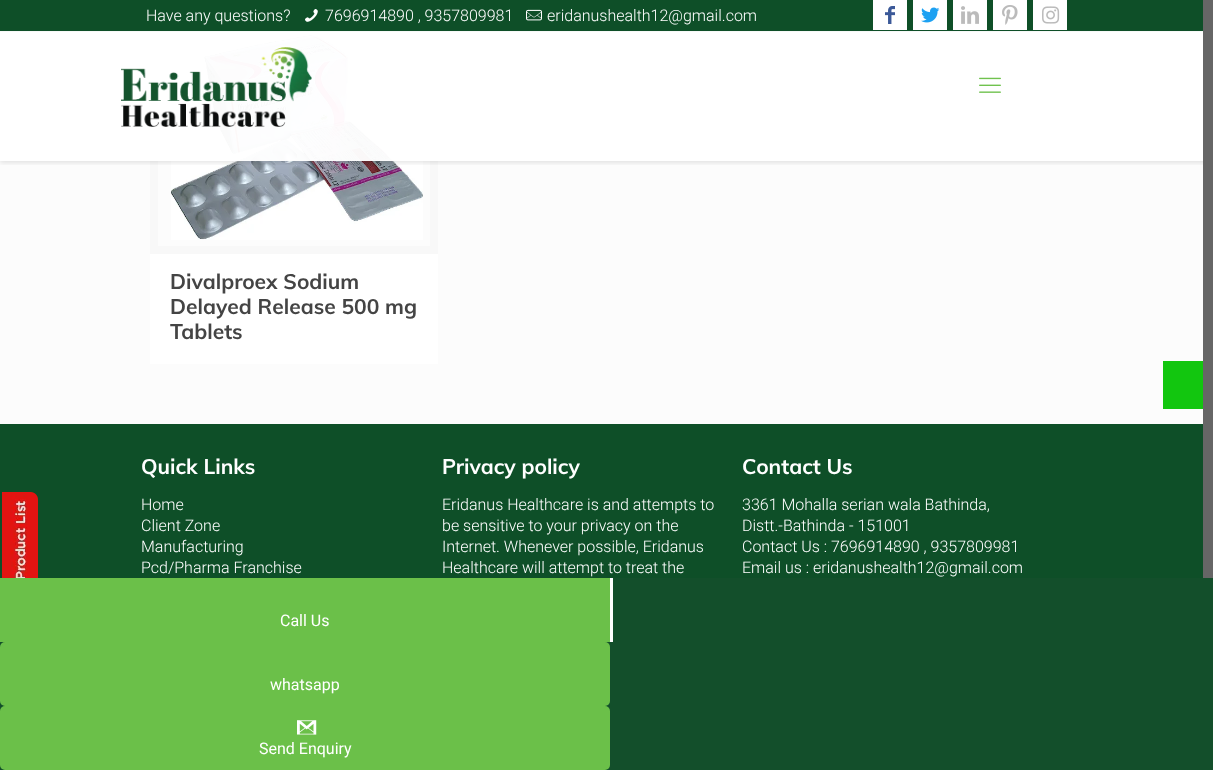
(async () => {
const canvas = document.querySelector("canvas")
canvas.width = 1213
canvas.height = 770
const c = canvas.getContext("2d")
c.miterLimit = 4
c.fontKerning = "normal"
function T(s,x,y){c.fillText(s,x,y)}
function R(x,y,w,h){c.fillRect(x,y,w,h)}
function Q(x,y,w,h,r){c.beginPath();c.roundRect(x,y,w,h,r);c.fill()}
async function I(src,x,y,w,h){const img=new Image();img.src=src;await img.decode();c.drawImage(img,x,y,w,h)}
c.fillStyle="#fcfcfc"
R(0,0,1213,770)
c.strokeStyle="#f8f8f8"
c.lineWidth=8
c.strokeRect(154,-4,280,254)
c.fillStyle="#0e4f28"
R(0,0,1203,32)
c.font="300 16px Roboto"
c.fillStyle="#fff"
T("Have any questions?",146,21)
await I("1.png",305,9,13,13)
T("7696914890 , 9357809981",325,21)
await I("2.png",526,9,16,12)
T("eridanushealth12@gmail.com",547,21)
R(873,0,34,30)
await I("3.png",885,6,10,18)
R(913,0,34,30)
await I("4.png",921,7,19,16)
R(953,0,34,30)
await I("5.png",961,6,18,18)
R(993,0,34,30)
await I("6.png",1002,5,16,20)
R(1033,0,34,30)
await I("7.png",1042,6,18,18)
await I("10.png",171,34,252,206)
c.save()
c.beginPath()
c.rect(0,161,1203,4)
c.clip()
c.fillStyle="#0000001a"
c.filter="blur(2.5px)"
c.beginPath()
c.rect(0,33,1213,130)
c.fill()
c.filter="none"
c.restore()
c.fillStyle="#fffffff7"
R(0,31,1203,130)
await I("8.png",121,47,191,80)
await I("9.png",979,77,22,16)
c.fillStyle="#fff"
R(150,254,288,110)
c.font="bold 21px Muli"
c.fillStyle="#444"
T("Divalproex Sodium",170,289)
T("Delayed Release 500 mg",170,314)
T("Tablets",170,339)
c.fillStyle="#0e4f28"
R(0,424,1203,154)
c.fillStyle="#fff"
T("Quick Links",141,474)
c.font="300 16px Roboto"
T("Home",141,510)
T("Client Zone",141,531)
T("Manufacturing",141,552)
T("Pcd/Pharma Franchise",141,573)
c.font="bold 21px Muli"
T("Privacy policy",442,474)
c.font="300 16px Roboto"
T("Eridanus Healthcare is and attempts to",442,510)
T("be sensitive to your privacy on the",442,531)
T("Internet. Whenever possible, Eridanus",442,552)
T("Healthcare will attempt to treat the",442,573)
c.font="bold 21px Muli"
T("Contact Us",742,474)
c.font="300 16px Roboto"
T("3361 Mohalla serian wala Bathinda,",742,510)
T("Distt.-Bathinda - 151001",742,531)
T("Contact Us : 7696914890 , 9357809981",742,552)
T("Email us : eridanushealth12@gmail.com",742,573)
c.fillStyle="#134f2b"
R(0,578,1213,192)
c.fillStyle="#6bc049"
R(0,578,610,64)
c.fillStyle="#fff"
R(610,578,3,64)
c.font="16px Roboto"
T("Call Us",280,626)
c.fillStyle="#6bc049"
Q(0,642,610,64,5)
c.fillStyle="#fff"
T("whatsapp",270,690)
c.fillStyle="#6bc049"
Q(0,706,610,64,5)
await I("11.png",297,720,20,15)
c.fillStyle="#fff"
T("Send Enquiry",259,754)
c.fillStyle="#12c60f"
R(1163,361,40,48)
c.fillStyle="#666"
R(1203,0,10,578)
await I("12.png",2,492,36,86)
})()
